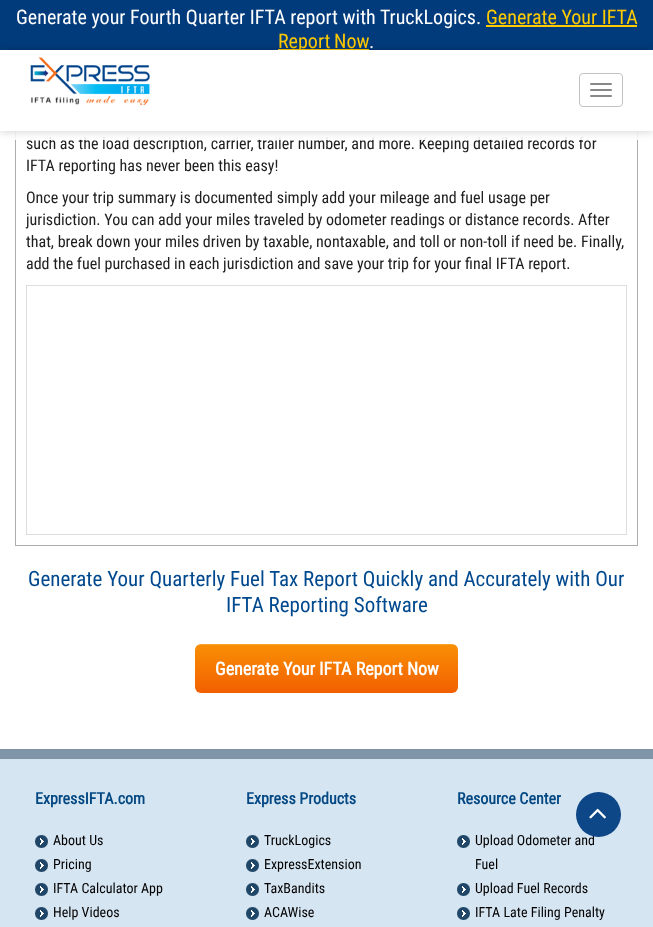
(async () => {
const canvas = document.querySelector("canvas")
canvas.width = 653
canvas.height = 927
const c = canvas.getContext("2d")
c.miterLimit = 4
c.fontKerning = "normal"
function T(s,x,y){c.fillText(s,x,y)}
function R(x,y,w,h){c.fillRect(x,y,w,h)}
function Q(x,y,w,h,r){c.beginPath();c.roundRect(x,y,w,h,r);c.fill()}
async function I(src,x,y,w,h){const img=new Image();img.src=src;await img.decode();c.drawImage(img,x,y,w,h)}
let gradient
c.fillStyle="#fff"
R(0,0,653,927)
c.strokeStyle="#acacac"
c.strokeRect(15.5,-.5,622,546)
c.fillStyle="#023b7c"
R(0,0,653,50)
c.font="20px Roboto Condensed"
c.fillStyle="#fff"
T("Generate your Fourth Quarter IFTA report with TruckLogics.",16,24)
c.fillStyle="#ffcb00"
T("Generate Your IFTA",486,24)
R(486,25,151,2)
R(278,49,91,1)
c.wordSpacing="-1px"
T("Report Now",278,48)
c.wordSpacing="0px"
c.fillStyle="#fff"
T(".",369,48)
c.font="16px Roboto Condensed"
c.fillStyle="#202020"
T("such as the load description, carrier, trailer number, and more. Keeping detailed records for",26,149)
c.fillStyle="#ffffffe6"
R(15,131,623,9)
c.fillStyle="#00000033"
c.filter="blur(5px)"
c.beginPath()
c.rect(0,50,653,81)
c.fill()
c.filter="none"
c.fillStyle="#fff"
R(0,50,653,81)
await I("1.png",30,57,120,48)
c.beginPath()
c.roundRect(579.5,73.5,43,33,3.5)
c.strokeStyle="#c3c3c3"
c.stroke()
c.fillStyle="#888"
Q(590,83,22,2,1)
Q(590,89,22,2,1)
Q(590,95,22,2,1)
c.fillStyle="#202020"
T("IFTA reporting has never been this easy!",26,171)
T("Once your trip summary is documented simply add your mileage and fuel usage per",26,203)
T("jurisdiction. You can add your miles traveled by odometer readings or distance records. After",26,225)
T("that, break down your miles driven by taxable, nontaxable, and toll or non-toll if need be. Finally,",26,247)
T("add the fuel purchased in each jurisdiction and save your trip for your final IFTA report.",26,269)
c.strokeStyle="#ddd"
c.strokeRect(26.5,285.5,600,249)
c.font="21px Roboto Condensed"
c.fillStyle="#00498e"
T("Generate Your Quarterly Fuel Tax Report Quickly and Accurately with Our",28,586)
T("IFTA Reporting Software",226,612)
gradient = c.createLinearGradient(327,644,327,693)
gradient.addColorStop(0,"#f9b759")
gradient.addColorStop(.02,"#f98f05")
gradient.addColorStop(1,"#f25f00")
c.fillStyle = gradient
Q(195,644,263,49,6)
c.font="bold 18px Roboto Condensed"
c.fillStyle="#fff"
T("Generate Your IFTA Report Now",215,675)
c.fillStyle="#d6e5f2"
R(0,759,653,168)
c.fillStyle="#8095a7"
R(0,749,653,10)
c.font="bold 16px Roboto Condensed"
c.fillStyle="#034882"
T("ExpressIFTA.com",35,804)
await I("2.png",35,835,13,13)
c.font="14px Roboto Condensed"
c.fillStyle="#000"
T("About Us",53,845)
await I("2.png",35,859,13,13)
T("Pricing",53,869)
await I("2.png",35,883,13,13)
T("IFTA Calculator App",53,893)
await I("2.png",35,907,13,13)
T("Help Videos",53,917)
c.font="bold 16px Roboto Condensed"
c.fillStyle="#034882"
T("Express Products",246,804)
await I("2.png",246,835,13,13)
c.font="14px Roboto Condensed"
c.fillStyle="#000"
T("TruckLogics",264,845)
await I("2.png",246,859,13,13)
T("ExpressExtension",264,869)
await I("2.png",246,883,13,13)
T("TaxBandits",264,893)
await I("2.png",246,907,13,13)
T("ACAWise",264,917)
c.font="bold 16px Roboto Condensed"
c.fillStyle="#034882"
T("Resource Center",457,804)
await I("2.png",457,835,13,13)
c.font="14px Roboto Condensed"
c.fillStyle="#000"
T("Upload Odometer and",475,845)
T("Fuel",475,869)
await I("2.png",457,883,13,13)
T("Upload Fuel Records",475,893)
await I("2.png",457,907,13,13)
T("IFTA Late Filing Penalty",475,917)
c.fillStyle="#0e4787"
c.beginPath()
c.arc(598.5,814.5,22.5,0,7)
c.fill()
await I("3.png",589,808,17,11)
})()
